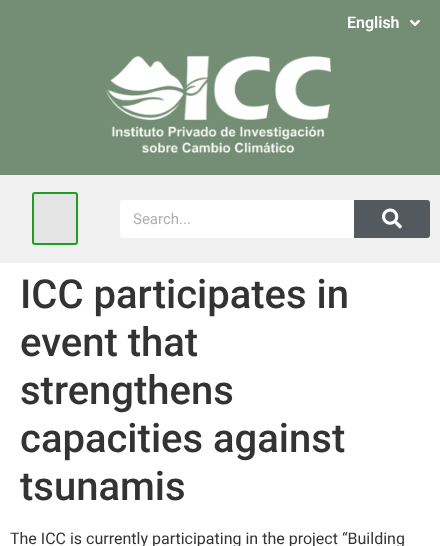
(async () => {
const canvas = document.querySelector("canvas")
canvas.width = 440
canvas.height = 546
const c = canvas.getContext("2d")
c.miterLimit = 4
c.fontKerning = "normal"
function T(s,x,y){c.fillText(s,x,y)}
function R(x,y,w,h){c.fillRect(x,y,w,h)}
function Q(x,y,w,h,r){c.beginPath();c.roundRect(x,y,w,h,r);c.fill()}
async function I(src,x,y,w,h){const img=new Image();img.src=src;await img.decode();c.drawImage(img,x,y,w,h)}
c.fillStyle="#fff"
R(0,0,440,546)
c.fillStyle="#738e74"
R(0,0,440,175)
c.font="600 16px Roboto"
c.fillStyle="#fff"
T("English",347,28)
await I("1.png",410,19,10,8)
await I("2.png",105,55,227,98)
c.fillStyle="#f0f0f0"
R(0,175,440,88)
c.fillStyle="#e4e4e4"
c.beginPath()
c.roundRect(33,193,44,51,2)
c.fill()
c.strokeStyle="#1f9e27"
c.lineWidth=2
c.stroke()
c.fillStyle="#fff"
Q(120,200,310,38,3)
c.font="15px Roboto"
c.fillStyle="#afafaf"
T("Search...",133,224)
c.fillStyle="#54595f"
c.beginPath()
c.roundRect(354,200,76,38,[0,3,3,0])
c.fill()
await I("3.png",382,208,20,21)
c.font="500 40px Roboto"
c.fillStyle="#333"
T("ICC participates in",20,308)
T("event that",20,356)
T("strengthens",20,404)
T("capacities against",20,452)
T("tsunamis",20,500)
c.font="16px Roboto"
T("The ICC is currently participating in the project “Building",10,544)
})()
